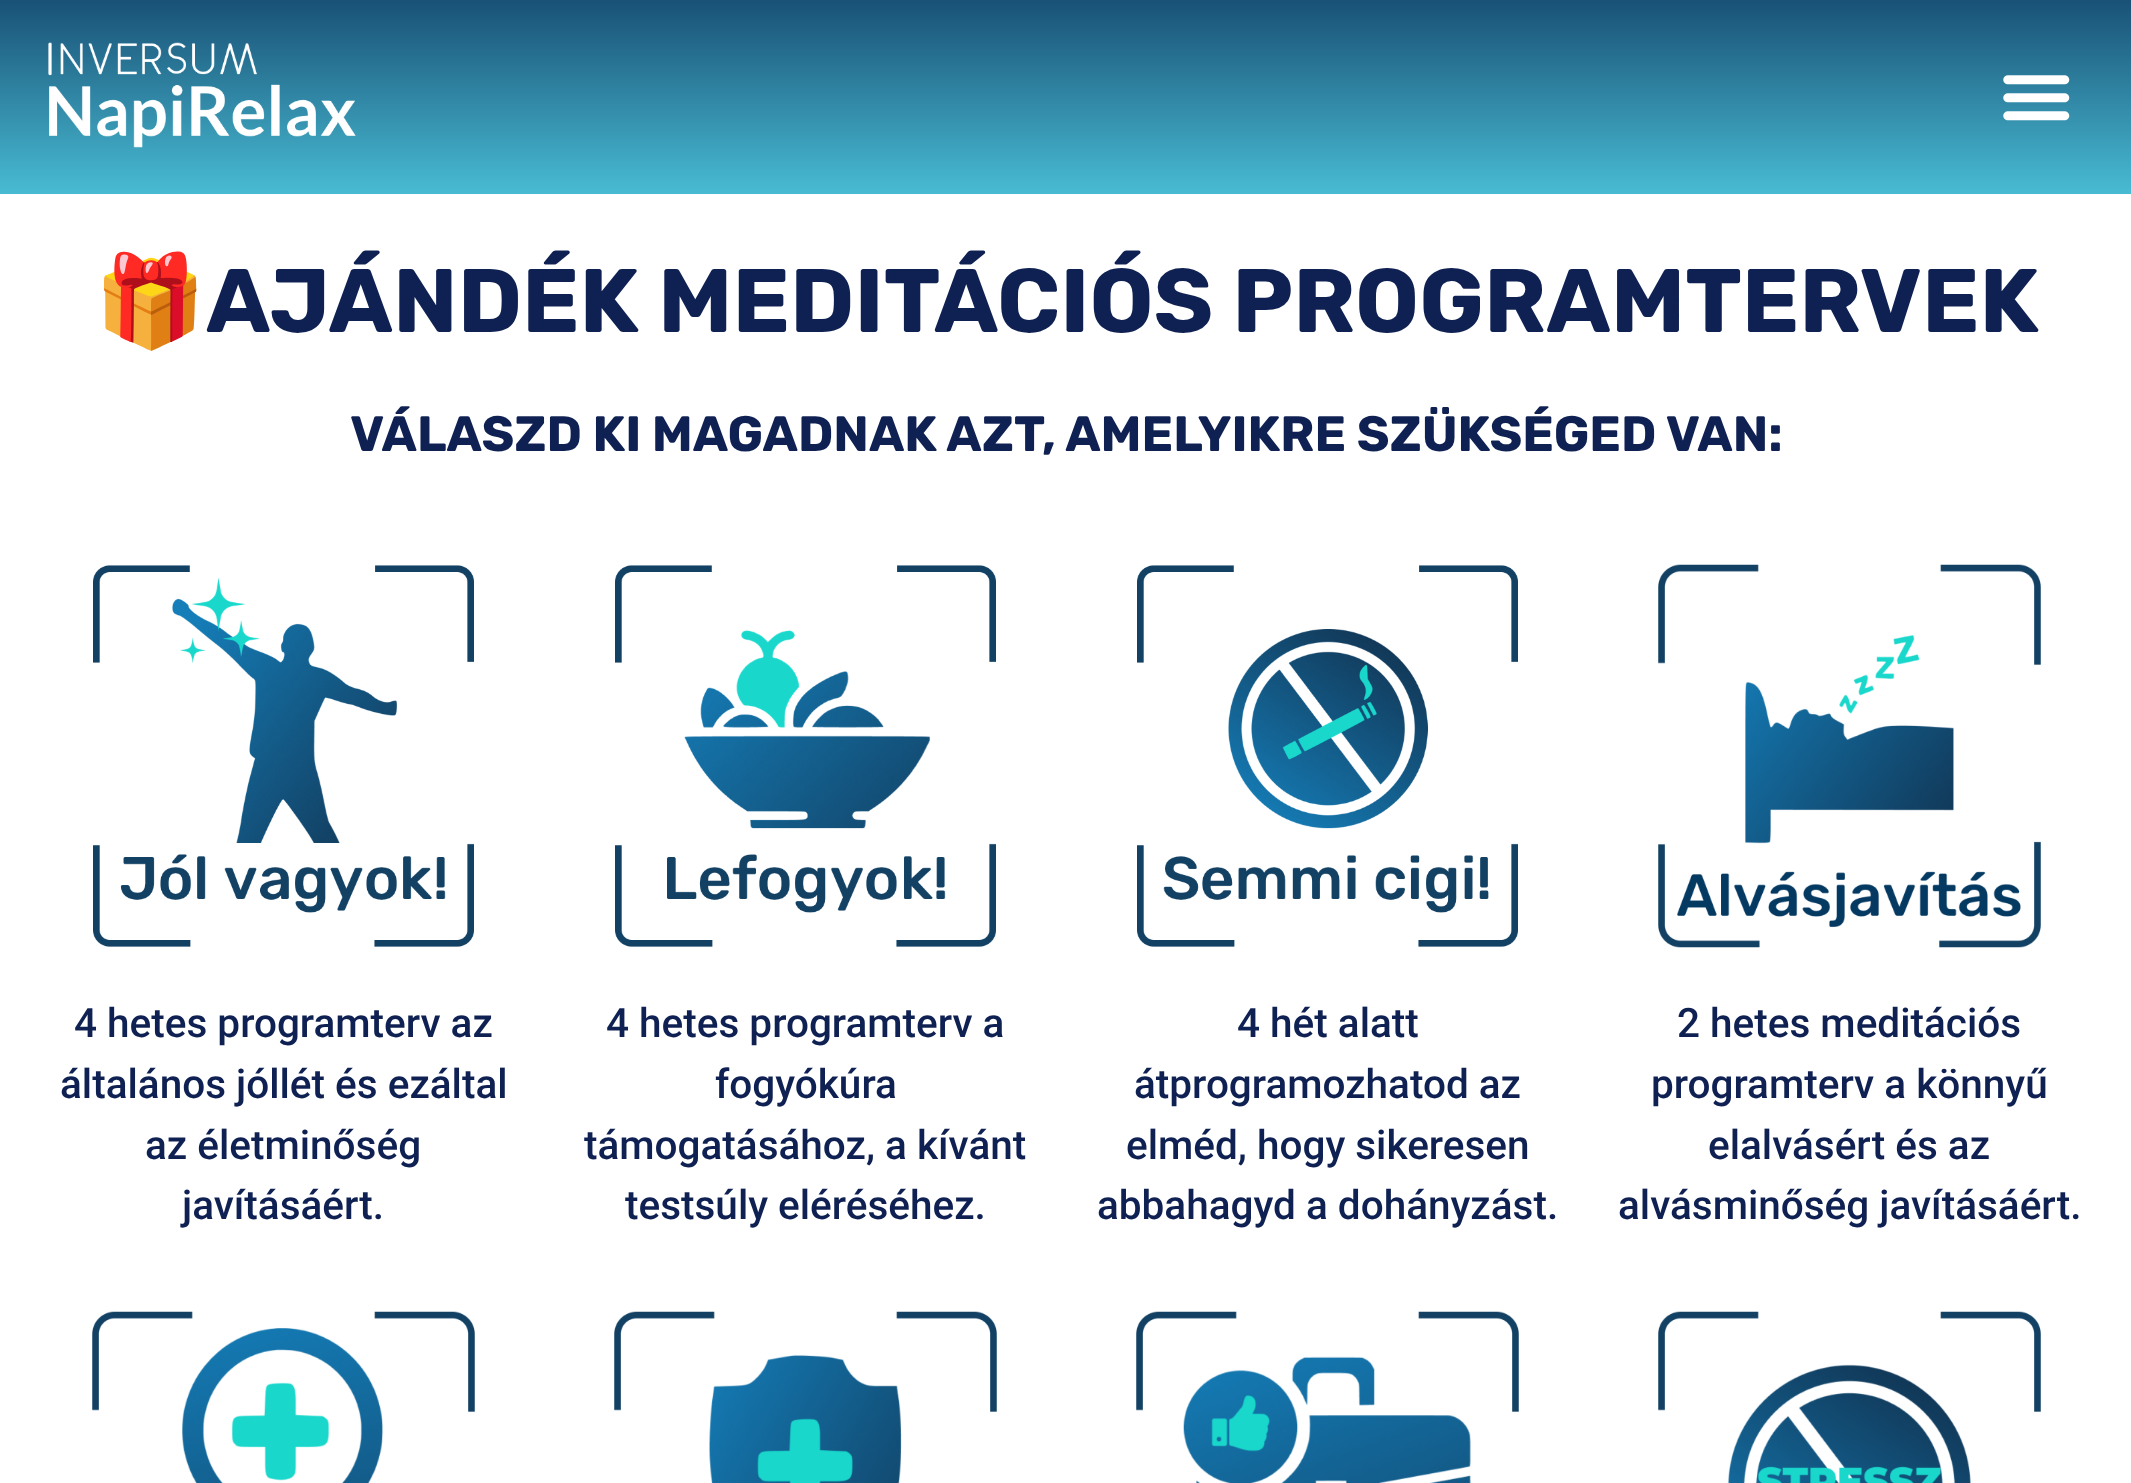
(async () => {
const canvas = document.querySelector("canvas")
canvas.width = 2131
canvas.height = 1483
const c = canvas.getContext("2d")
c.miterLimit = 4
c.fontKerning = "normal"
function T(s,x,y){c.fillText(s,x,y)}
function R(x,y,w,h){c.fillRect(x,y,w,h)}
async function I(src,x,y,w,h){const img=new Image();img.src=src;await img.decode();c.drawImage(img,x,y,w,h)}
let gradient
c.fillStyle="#fff"
R(0,0,2131,1483)
gradient = c.createLinearGradient(1067,0,1067,194)
gradient.addColorStop(0,"#195176")
gradient.addColorStop(1,"#48bbd3")
c.fillStyle = gradient
R(0,0,2131,194)
await I("1.png",48,42,308,106)
await I("2.png",2003,75,67,46)
c.font="bold 90px Noto Color Emoji"
c.fillStyle="#0f2153"
T("🎁",94,332)
c.font="bold 90px Rubik"
T("AJÁNDÉK MEDITÁCIÓS PROGRAMTERVEK",206,332)
c.font="bold 49.5px Rubik"
T("VÁLASZD KI MAGADNAK AZT, AMELYIKRE SZÜKSÉGED VAN:",350,451)
await I("3.png",93,565,381,382)
await I("4.png",615,565,381,382)
await I("5.png",1137,565,381,382)
await I("6.png",1658,564,383,384)
c.font="500 40.5px Roboto"
T("4 hetes programterv az",74,1037)
T("általános jóllét és ezáltal",60,1098)
T("az életminőség",145,1159)
T("javításáért.",182,1219)
T("4 hetes programterv a",606,1037)
T("fogyókúra",715,1098)
T("támogatásához, a kívánt",584,1159)
T("testsúly eléréséhez.",625,1219)
T("4 hét alatt",1237,1037)
T("átprogramozhatod az",1134,1098)
T("elméd, hogy sikeresen",1126,1159)
T("abbahagyd a dohányzást.",1097,1219)
T("2 hetes meditációs",1677,1037)
T("programterv a könnyű",1651,1098)
T("elalvásért és az",1708,1159)
T("alvásminőség javításáért.",1618,1219)
await I("7.png",92,1311,383,172)
await I("8.png",614,1311,383,172)
await I("9.png",1136,1311,383,172)
await I("10.png",1658,1311,383,172)
})()
